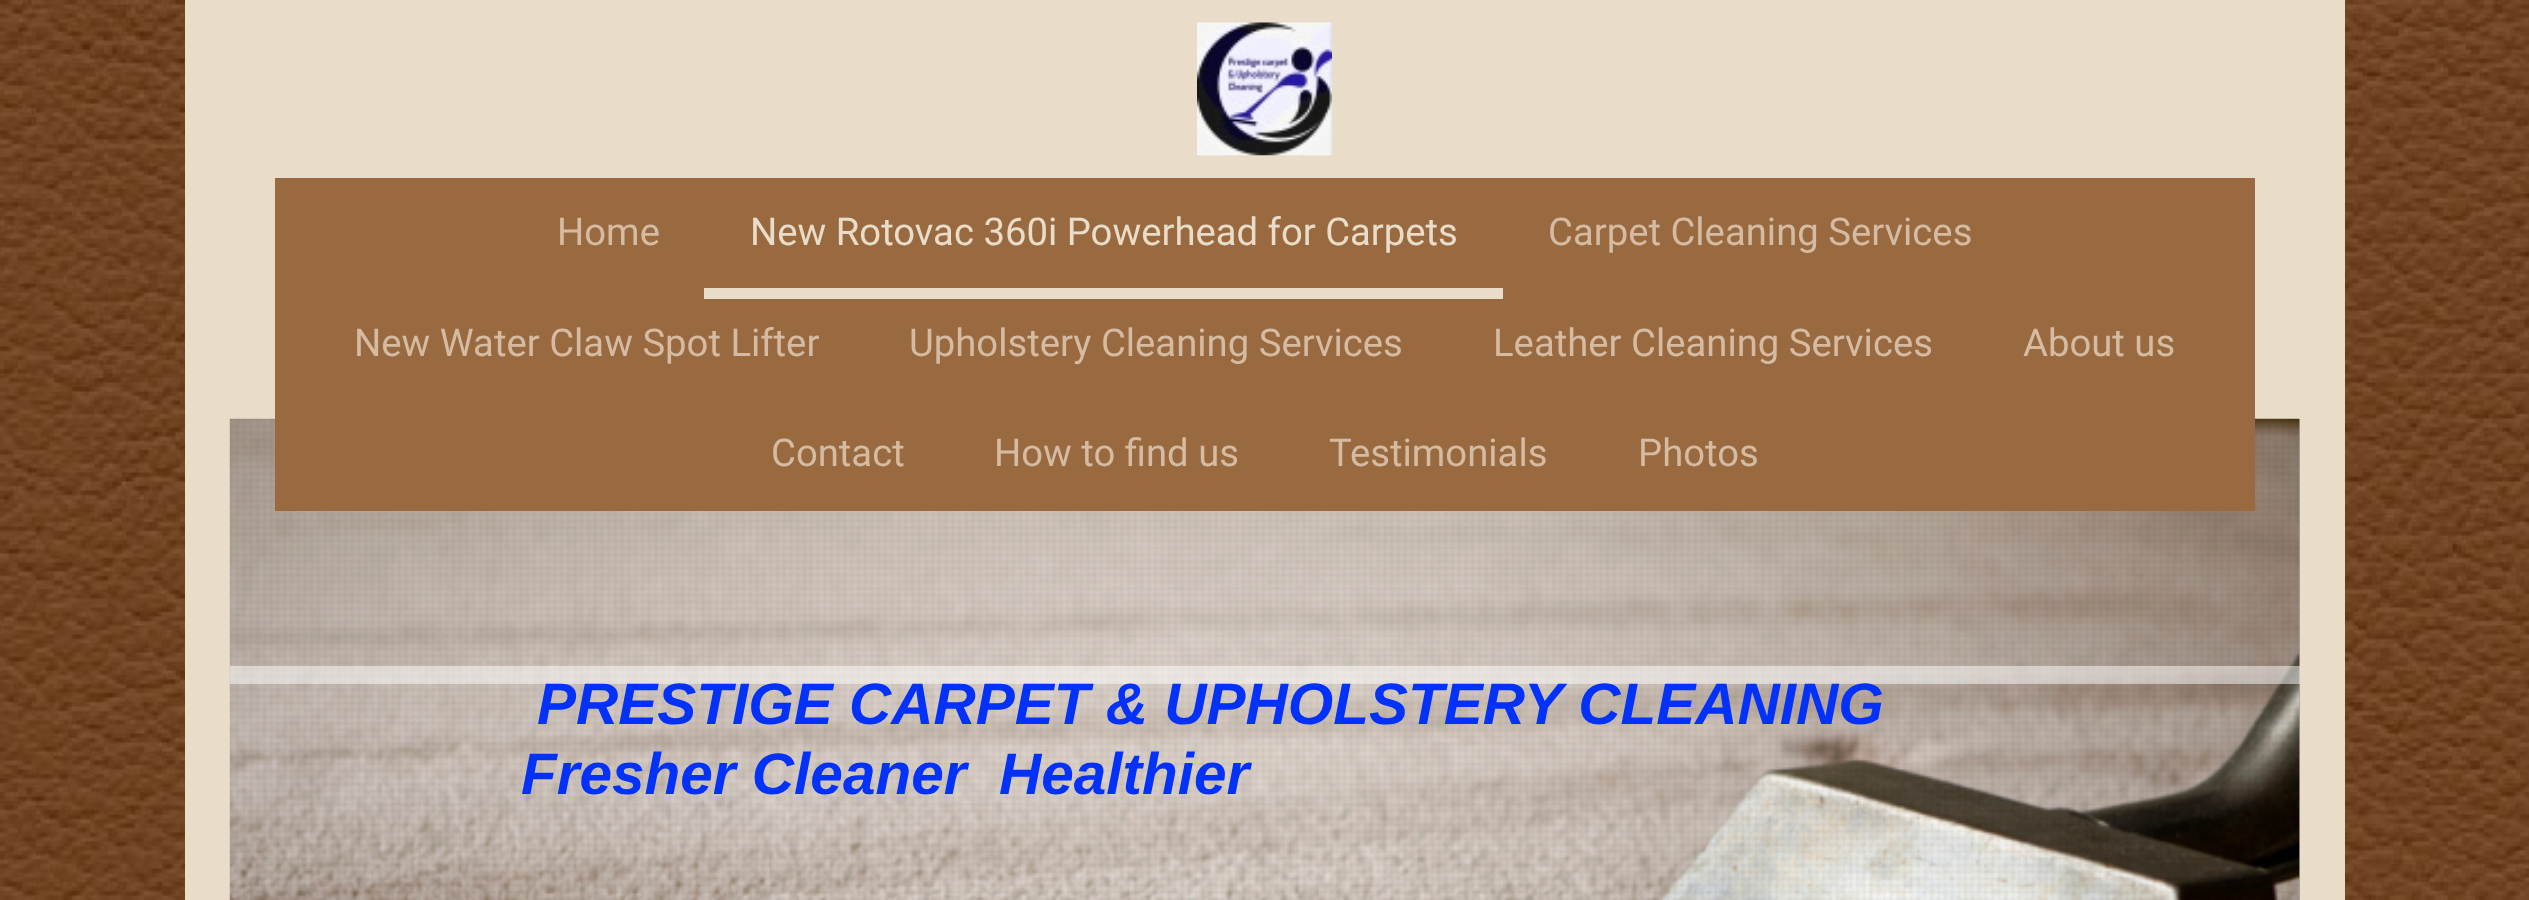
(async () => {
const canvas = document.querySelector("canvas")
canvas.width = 2529
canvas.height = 900
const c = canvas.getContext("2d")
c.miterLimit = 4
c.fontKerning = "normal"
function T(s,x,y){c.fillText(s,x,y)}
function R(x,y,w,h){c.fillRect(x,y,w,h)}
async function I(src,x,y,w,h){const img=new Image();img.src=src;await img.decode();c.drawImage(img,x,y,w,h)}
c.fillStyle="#fff"
R(0,0,2529,900)
await I("1.png",0,0,2529,900)
c.fillStyle="#e9ddc9"
R(185,0,2160,900)
await I("2.png",1197,22,135,134)
c.fillStyle="#a0a0a0"
R(2299,419,1,481)
await I("3.png",229,418,2071,482)
await I("4.png",230,419,2069,481)
c.fillStyle="#996a40"
R(275,178,1980,333)
c.font="38.25px Roboto"
c.fillStyle="#d6bba3"
T("Home",557,245)
c.fillStyle="#e9ddc9"
R(704,288,799,11)
T("New Rotovac 360i Powerhead for Carpets",750,245)
c.fillStyle="#d6bba3"
T("Carpet Cleaning Services",1548,245)
T("New Water Claw Spot Lifter",354,356)
T("Upholstery Cleaning Services",909,356)
T("Leather Cleaning Services",1493,356)
T("About us",2023,356)
T("Contact",771,466)
T("How to find us",994,466)
T("Testimonials",1329,466)
T("Photos",1638,466)
c.fillStyle="#ffffff80"
R(230,666,2070,18)
c.font="italic bold 58.5px Liberation Sans"
c.fillStyle="#0231f9"
T("PRESTIGE CARPET & UPHOLSTERY CLEANING",537,724)
T("Fresher Cleaner  Healthier",521,794)
})()
